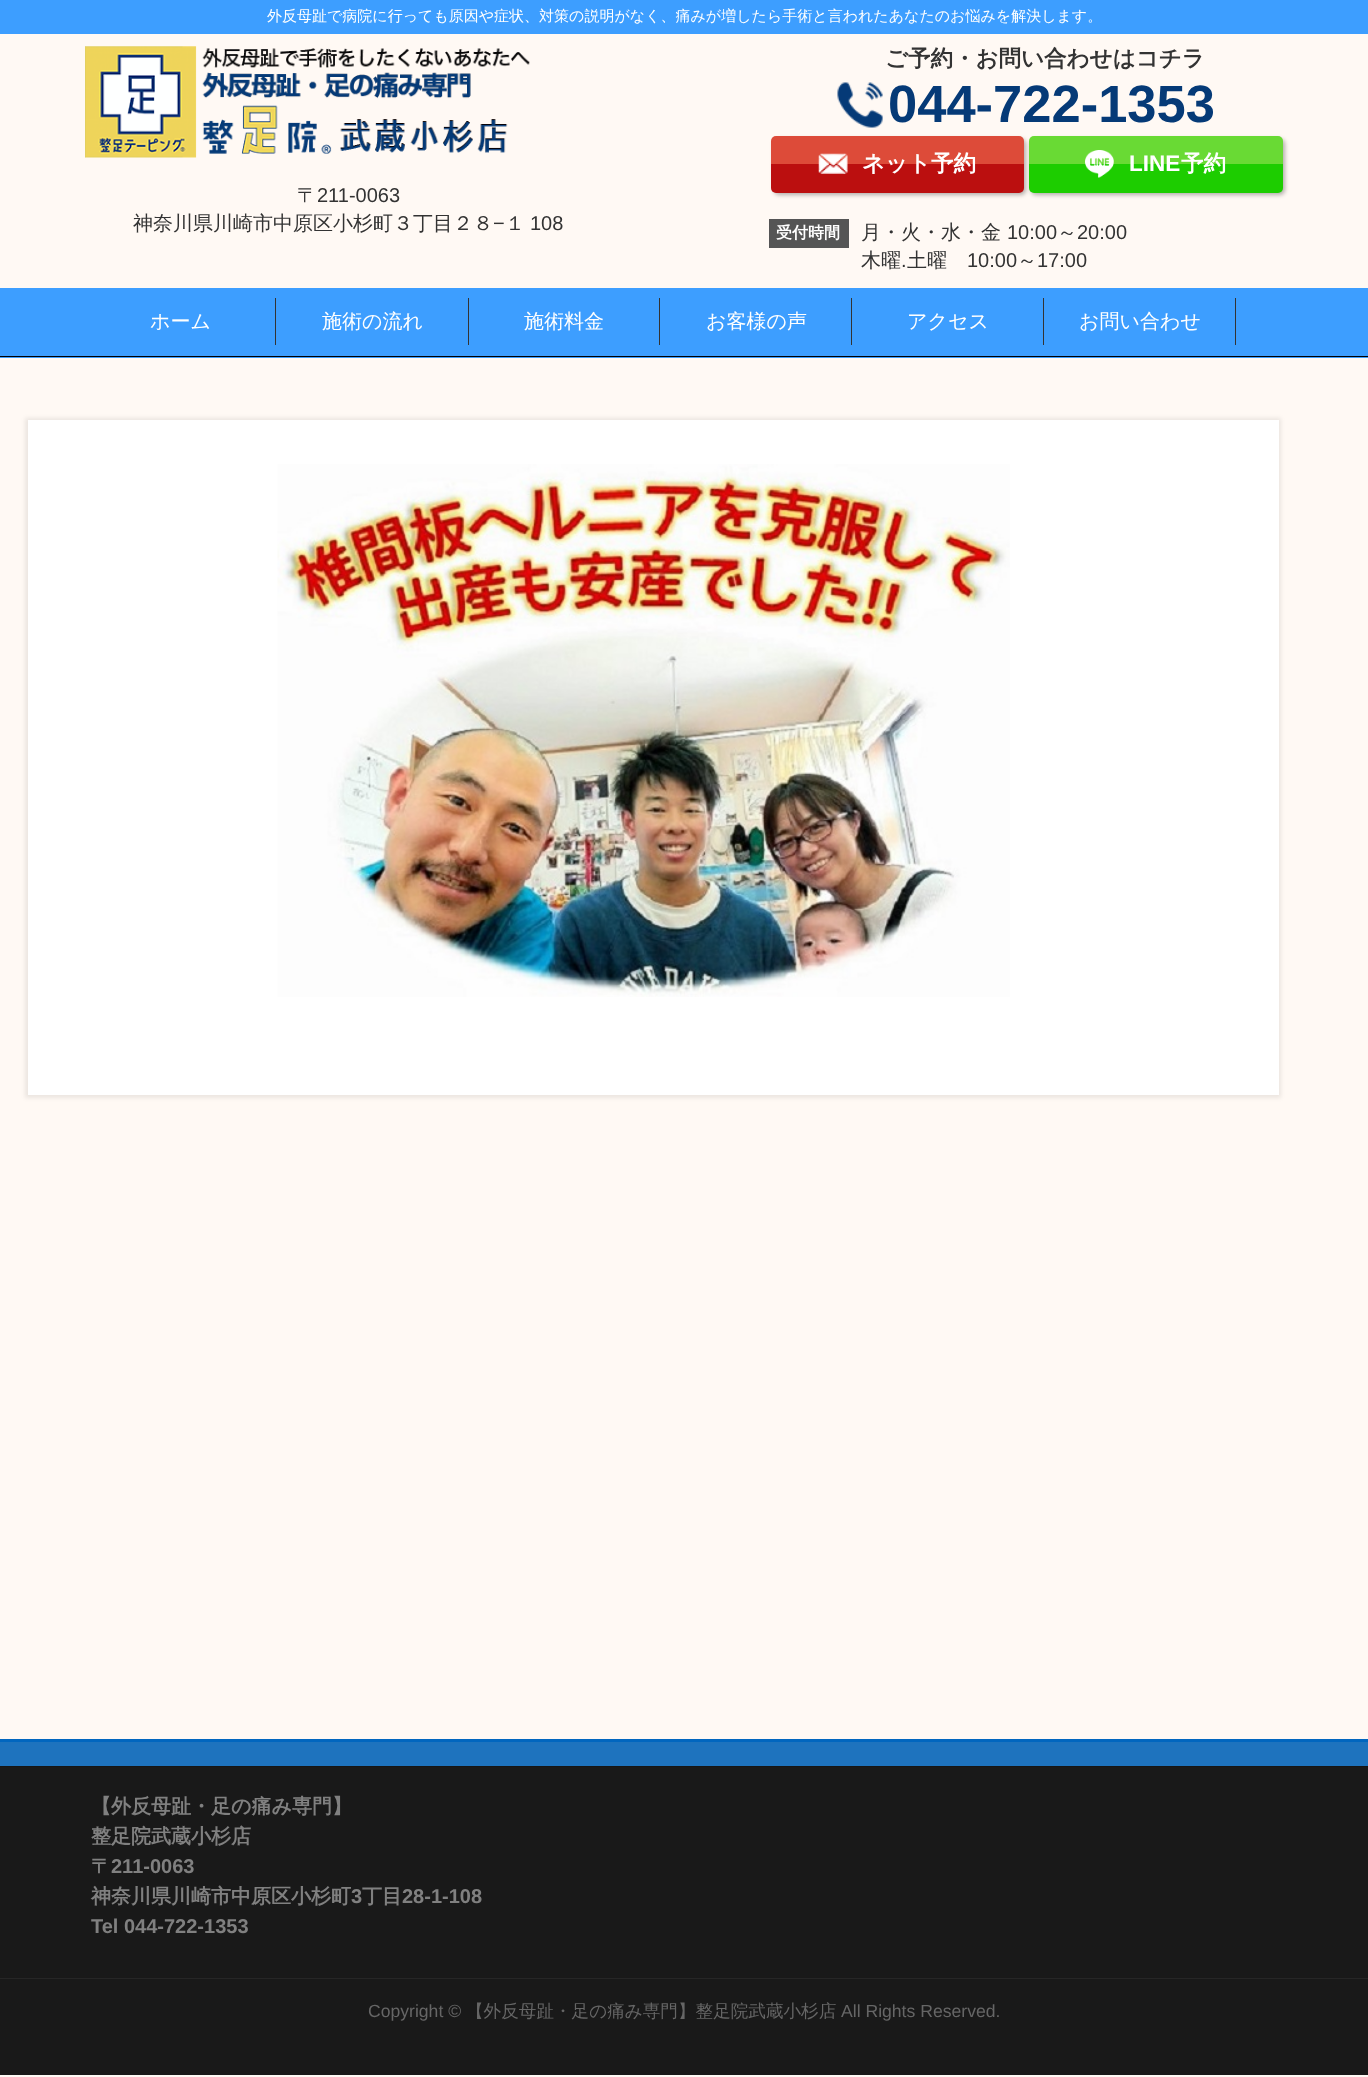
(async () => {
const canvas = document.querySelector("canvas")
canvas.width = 1368
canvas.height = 2077
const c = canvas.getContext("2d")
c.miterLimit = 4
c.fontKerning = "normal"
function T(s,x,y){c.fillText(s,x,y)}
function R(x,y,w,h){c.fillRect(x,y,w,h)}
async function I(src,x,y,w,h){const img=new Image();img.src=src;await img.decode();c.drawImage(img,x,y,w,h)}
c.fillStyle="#fff9f4"
R(0,0,1368,2077)
c.fillStyle="#3d9eff"
R(0,0,1368,34)
c.font="500 15px WenQuanYi Zen Hei"
c.fillStyle="#fff"
T("外反母趾で病院に行っても原因や症状、対策の説明がなく、痛みが増したら手術と言われたあなたのお悩みを解決します。",267,21)
await I("1.png",85,46,445,112)
c.font="500 20px WenQuanYi Zen Hei"
c.fillStyle="#333"
T("〒",297,202)
c.font="20px Liberation Sans"
T("211-0063",317,202)
c.font="500 20px WenQuanYi Zen Hei"
T("神奈川県川崎市中原区小杉町３丁目２８",133,230)
c.font="20px Liberation Sans"
T("−",493,230)
c.font="500 20px WenQuanYi Zen Hei"
T("１",505,230)
c.font="20px Liberation Sans"
T("108",530,230)
c.font="bold 22.5px WenQuanYi Zen Hei"
T("ご予約・お問い合わせはコチラ",885,66)
await I("2.png",837,82,46,46)
c.font="bold 52.5px Liberation Sans"
c.fillStyle="#053a77"
T("044-722-1353",888,122)
c.fillStyle="#0000004d"
c.filter="blur(2px)"
c.beginPath()
c.roundRect(774,139,252,56,5)
c.fill()
c.filter="none"
c.fillStyle="#dd4b39"
c.beginPath()
c.roundRect(771,136,253,28,[5,5,0,0])
c.fill()
c.fillStyle="#bb0f0f"
c.beginPath()
c.roundRect(771,164,253,29,[0,0,5,5])
c.fill()
await I("3.png",818,153,30,21)
c.font="bold 22.5px WenQuanYi Zen Hei"
c.fillStyle="#fff"
T("ネット予約",862,171)
c.fillStyle="#0000004d"
c.filter="blur(2px)"
c.beginPath()
c.roundRect(1031,139,254,56,5)
c.fill()
c.filter="none"
c.fillStyle="#69da34"
c.beginPath()
c.roundRect(1029,136,254,28,[5,5,0,0])
c.fill()
c.fillStyle="#1dcd00"
c.beginPath()
c.roundRect(1029,164,254,29,[0,0,5,5])
c.fill()
await I("4.png",1085,150,29,28)
c.font="bold 22.5px Liberation Sans"
c.fillStyle="#fff"
T("LINE",1129,171)
c.font="bold 22.5px WenQuanYi Zen Hei"
T("予約",1181,171)
c.fillStyle="#555"
R(769,219,80,29)
c.font="bold 16px WenQuanYi Zen Hei"
c.fillStyle="#fff"
T("受付時間",776,238)
c.font="500 20px WenQuanYi Zen Hei"
c.fillStyle="#333"
T("月・火・水・金",861,239)
c.font="20px Liberation Sans"
T("10:00",1007,239)
c.font="500 20px WenQuanYi Zen Hei"
T("～",1057,239)
c.font="20px Liberation Sans"
T("20:00",1077,239)
c.font="500 20px WenQuanYi Zen Hei"
T("木曜",861,267)
T("土曜",907,267)
c.font="20px Liberation Sans"
T("10:00",967,267)
c.font="500 20px WenQuanYi Zen Hei"
T("～",1017,267)
c.font="20px Liberation Sans"
T("17:00",1037,267)
T(".",901,267)
c.fillStyle="#3d9eff"
R(0,288,1368,70)
c.fillStyle="#000"
R(0,356,1368,1)
c.font="500 20px WenQuanYi Zen Hei"
c.fillStyle="#fff"
T("ホーム",150,328)
c.fillStyle="#333"
R(275,298,1,47)
c.fillStyle="#fff"
T("施術の流れ",322,328)
c.fillStyle="#333"
R(468,298,1,47)
c.fillStyle="#fff"
T("施術料金",524,328)
c.fillStyle="#333"
R(659,298,1,47)
c.fillStyle="#fff"
T("お客様の声",706,328)
c.fillStyle="#333"
R(851,298,1,47)
c.fillStyle="#fff"
T("アクセス",907,328)
c.fillStyle="#333"
R(1043,298,1,47)
c.fillStyle="#fff"
T("お問い合わせ",1079,328)
c.fillStyle="#333"
R(1235,298,1,47)
c.fillStyle="#00000014"
c.filter="blur(2px)"
c.beginPath()
c.rect(25,418,1256,680)
c.fill()
c.filter="none"
c.fillStyle="#fff"
R(28,420,1251,675)
await I("5.png",277,464,733,533)
c.fillStyle="#1e73be"
R(0,1742,1368,24)
c.fillStyle="#0166bf"
R(0,1739,1368,3)
c.fillStyle="#191919"
R(0,1767,1368,211)
c.fillStyle="#151515"
R(0,1766,1368,1)
c.font="bold 20px WenQuanYi Zen Hei"
c.fillStyle="#808080"
T("【外反母趾・足の痛み専門】",91,1813)
T("整足院武蔵小杉店",91,1843)
T("〒",91,1873)
c.font="bold 20px Liberation Sans"
T("211-0063",111,1873)
c.font="bold 20px WenQuanYi Zen Hei"
T("神奈川県川崎市中原区小杉町",91,1903)
c.font="bold 20px Liberation Sans"
T("3",351,1903)
c.font="bold 20px WenQuanYi Zen Hei"
T("丁目",362,1903)
c.font="bold 20px Liberation Sans"
T("28-1-108",402,1903)
T("Tel 044-722-1353",91,1933)
c.fillStyle="#191919"
R(0,1979,1368,96)
c.fillStyle="#262626"
R(0,1978,1368,1)
c.font="17.6px Liberation Sans"
c.fillStyle="#666"
T("Copyright ©",368,2017)
c.font="500 17.6px WenQuanYi Zen Hei"
T("【外反母趾・足の痛み専門】整足院武蔵小杉店",466,2017)
c.font="17.6px Liberation Sans"
T("All Rights Reserved.",841,2017)
})()
